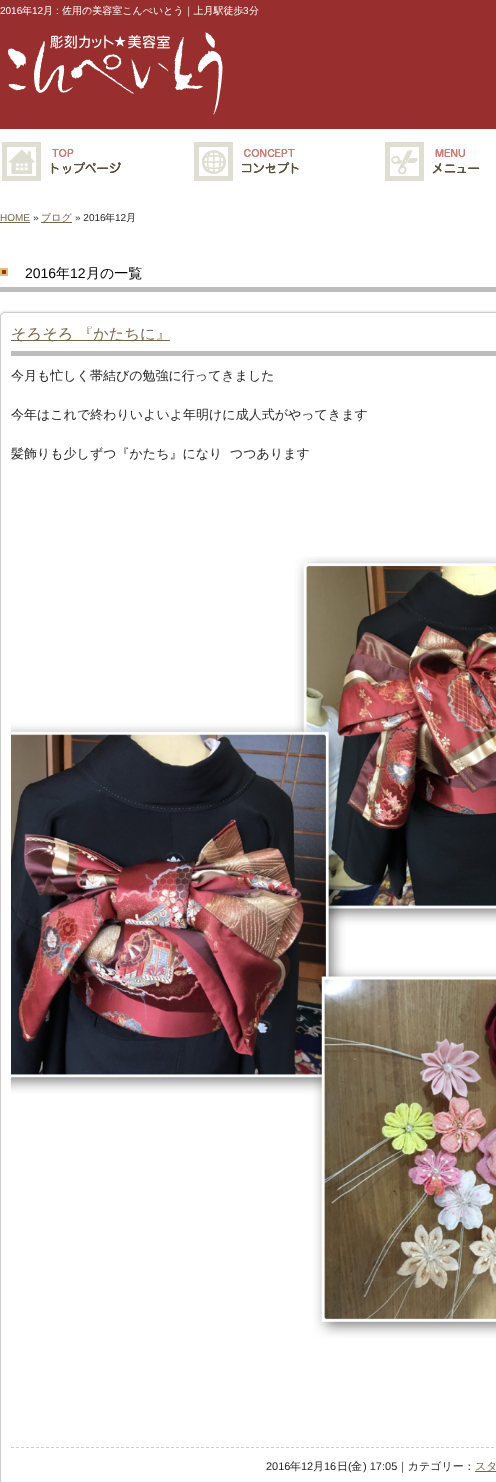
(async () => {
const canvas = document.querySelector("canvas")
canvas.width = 496
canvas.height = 1482
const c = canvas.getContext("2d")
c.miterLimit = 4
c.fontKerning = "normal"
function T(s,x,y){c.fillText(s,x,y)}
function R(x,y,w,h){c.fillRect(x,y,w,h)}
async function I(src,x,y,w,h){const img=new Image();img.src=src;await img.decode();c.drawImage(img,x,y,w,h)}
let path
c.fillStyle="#fff"
R(0,0,496,1482)
c.fillStyle="#982e2e"
R(0,0,496,129)
c.font="10px Liberation Sans"
c.fillStyle="#fff"
T("2016",0,14)
c.font="500 10px WenQuanYi Zen Hei"
T("年",22,14)
c.font="10px Liberation Sans"
T("12",32,14)
c.font="500 10px WenQuanYi Zen Hei"
T("月",43,14)
c.font="10px Liberation Sans"
T(":",56,14)
c.font="500 10px WenQuanYi Zen Hei"
T("佐用の美容室こんぺいとう｜上月駅徒歩",62,14)
c.font="10px Liberation Sans"
T("3",243,14)
c.font="500 10px WenQuanYi Zen Hei"
T("分",249,14)
await I("1.png",7,32,216,83)
await I("2.png",2,142,478,39)
await I("3.png",10,149,111,25)
await I("4.png",202,149,97,25)
await I("5.png",393,149,87,25)
c.font="10px Liberation Sans"
c.fillStyle="#75654d"
T("HOME",0,221)
R(0,222,30,1)
c.fillStyle="#252525"
T("»",33,221)
c.fillStyle="#75654d"
R(41,222,31,1)
c.font="500 10px WenQuanYi Zen Hei"
T("ブログ",41,221)
c.font="10px Liberation Sans"
c.fillStyle="#252525"
T("» 2016",75,221)
c.font="500 10px WenQuanYi Zen Hei"
T("年",105,221)
c.font="10px Liberation Sans"
T("12",115,221)
c.font="500 10px WenQuanYi Zen Hei"
T("月",126,221)
await I("6.png",0,268,496,24)
c.font="14px Liberation Sans"
c.fillStyle="#000"
T("2016",25,278)
c.font="500 14px WenQuanYi Zen Hei"
T("年",56,278)
c.font="14px Liberation Sans"
T("12",70,278)
c.font="500 14px WenQuanYi Zen Hei"
T("月の一覧",86,278)
c.fillStyle="#ccc"
c.filter="blur(1.5px)"
c.beginPath()
c.roundRect(0,312,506,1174,5)
c.fill()
c.filter="none"
c.fillStyle="#fff"
c.beginPath()
c.roundRect(.5,312.5,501,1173,4.5)
c.fill()
c.strokeStyle="#ccc"
c.stroke()
c.fillStyle="#bdbdbd"
R(11,351,485,5)
c.fillStyle="#75654d"
R(11,340,159,1)
c.font="500 15.25px WenQuanYi Zen Hei"
T("そろそろ 『かたちに』",11,339)
path = new Path2D("M11 1447.5h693")
c.setLineDash([3,2])
c.stroke(path)
c.font="500 13px WenQuanYi Zen Hei"
c.fillStyle="#252525"
T("今月も忙しく帯結びの勉強に行ってきました",11,380)
T("今年はこれで終わりいよいよ年明けに成人式がやってきます",11,419)
T("髪飾りも少しずつ『かたち』になり",11,458)
T("つつあります",230,458)
await I("7.png",11,556,485,782)
c.font="11px Liberation Sans"
T("2016",266,1470)
c.font="500 11px WenQuanYi Zen Hei"
T("年",290,1470)
c.font="11px Liberation Sans"
T("12",301,1470)
c.font="500 11px WenQuanYi Zen Hei"
T("月",313,1470)
c.font="11px Liberation Sans"
T("16",324,1470)
c.font="500 11px WenQuanYi Zen Hei"
T("日",337,1470)
c.font="11px Liberation Sans"
T("(",348,1470)
c.font="500 11px WenQuanYi Zen Hei"
T("金",351,1470)
c.font="11px Liberation Sans"
T(") 17:05",363,1470)
c.font="500 11px WenQuanYi Zen Hei"
T("｜カテゴリー：",397,1470)
c.fillStyle="#75654d"
R(475,1471,21,1)
T("スタ",475,1470)
})()
